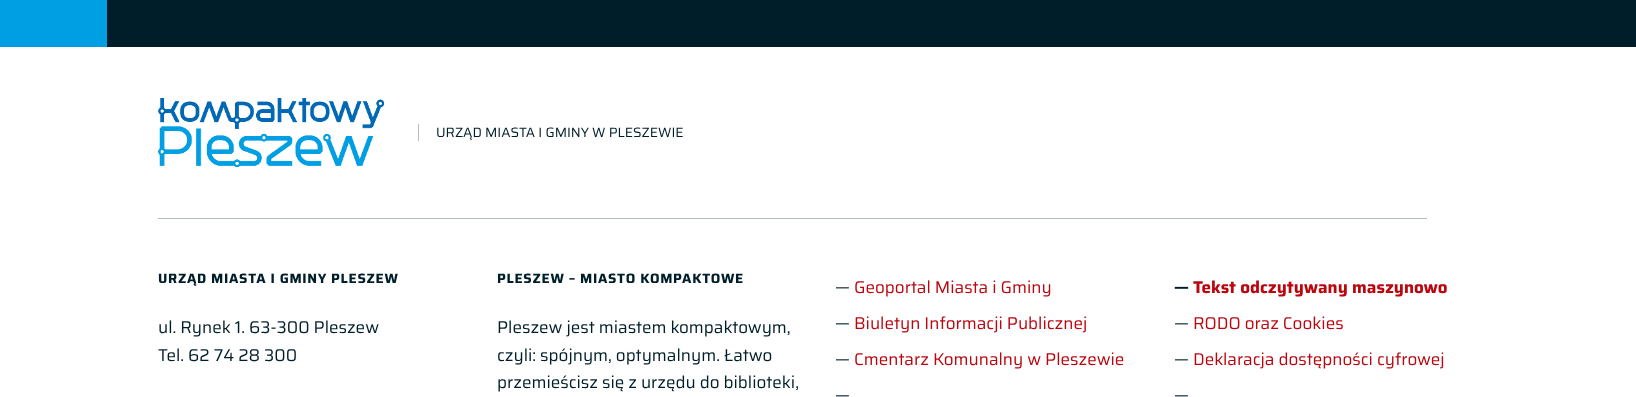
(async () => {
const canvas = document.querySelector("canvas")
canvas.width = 1636
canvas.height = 397
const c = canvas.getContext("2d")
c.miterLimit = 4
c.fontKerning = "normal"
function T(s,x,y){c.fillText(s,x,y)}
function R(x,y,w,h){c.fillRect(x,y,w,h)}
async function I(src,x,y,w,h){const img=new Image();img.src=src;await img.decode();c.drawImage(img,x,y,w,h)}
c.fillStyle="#fff"
R(0,0,1636,397)
c.fillStyle="#009fe3"
R(0,0,107,47)
c.fillStyle="#001e29"
R(107,0,1529,47)
c.fillStyle="#b3bcbf"
R(158,218,1269,1)
await I("1.png",158,98,226,69)
R(418,124,1,17)
c.font="13.6px Saira"
c.fillStyle="#001e29"
T("URZĄD MIASTA I GMINY W PLESZEWIE",436,137)
c.letterSpacing="0.7px"
c.font="bold 13.6px Saira"
T("URZĄD MIASTA I GMINY PLESZEW",158,283)
c.letterSpacing="0px"
c.font="17px Saira"
T("ul. Rynek 1. 63-300 Pleszew",158,333)
T("Tel. 62 74 28 300",158,361)
c.letterSpacing="0.7px"
c.font="bold 13.6px Saira"
T("PLESZEW – MIASTO KOMPAKTOWE",497,283)
c.letterSpacing="0px"
c.font="17px Saira"
T("Pleszew jest miastem kompaktowym,",497,333)
T("czyli: spójnym, optymalnym. Łatwo",497,361)
T("przemieścisz się z urzędu do biblioteki,",497,388)
T("—",835,293)
c.fillStyle="#bb060f"
T("Geoportal Miasta i Gminy",854,293)
c.fillStyle="#001e29"
T("—",835,329)
c.fillStyle="#bb060f"
T("Biuletyn Informacji Publicznej",854,329)
c.fillStyle="#001e29"
T("—",835,365)
c.fillStyle="#bb060f"
T("Cmentarz Komunalny w Pleszewie",854,365)
c.fillStyle="#001e29"
T("—",835,401)
c.font="bold 17px Saira"
T("—",1174,293)
c.fillStyle="#bb060f"
T("Tekst odczytywany maszynowo",1193,293)
c.font="17px Saira"
c.fillStyle="#001e29"
T("—",1174,329)
c.fillStyle="#bb060f"
T("RODO oraz Cookies",1193,329)
c.fillStyle="#001e29"
T("—",1174,365)
c.fillStyle="#bb060f"
T("Deklaracja dostępności cyfrowej",1193,365)
c.fillStyle="#001e29"
T("—",1174,401)
})()
